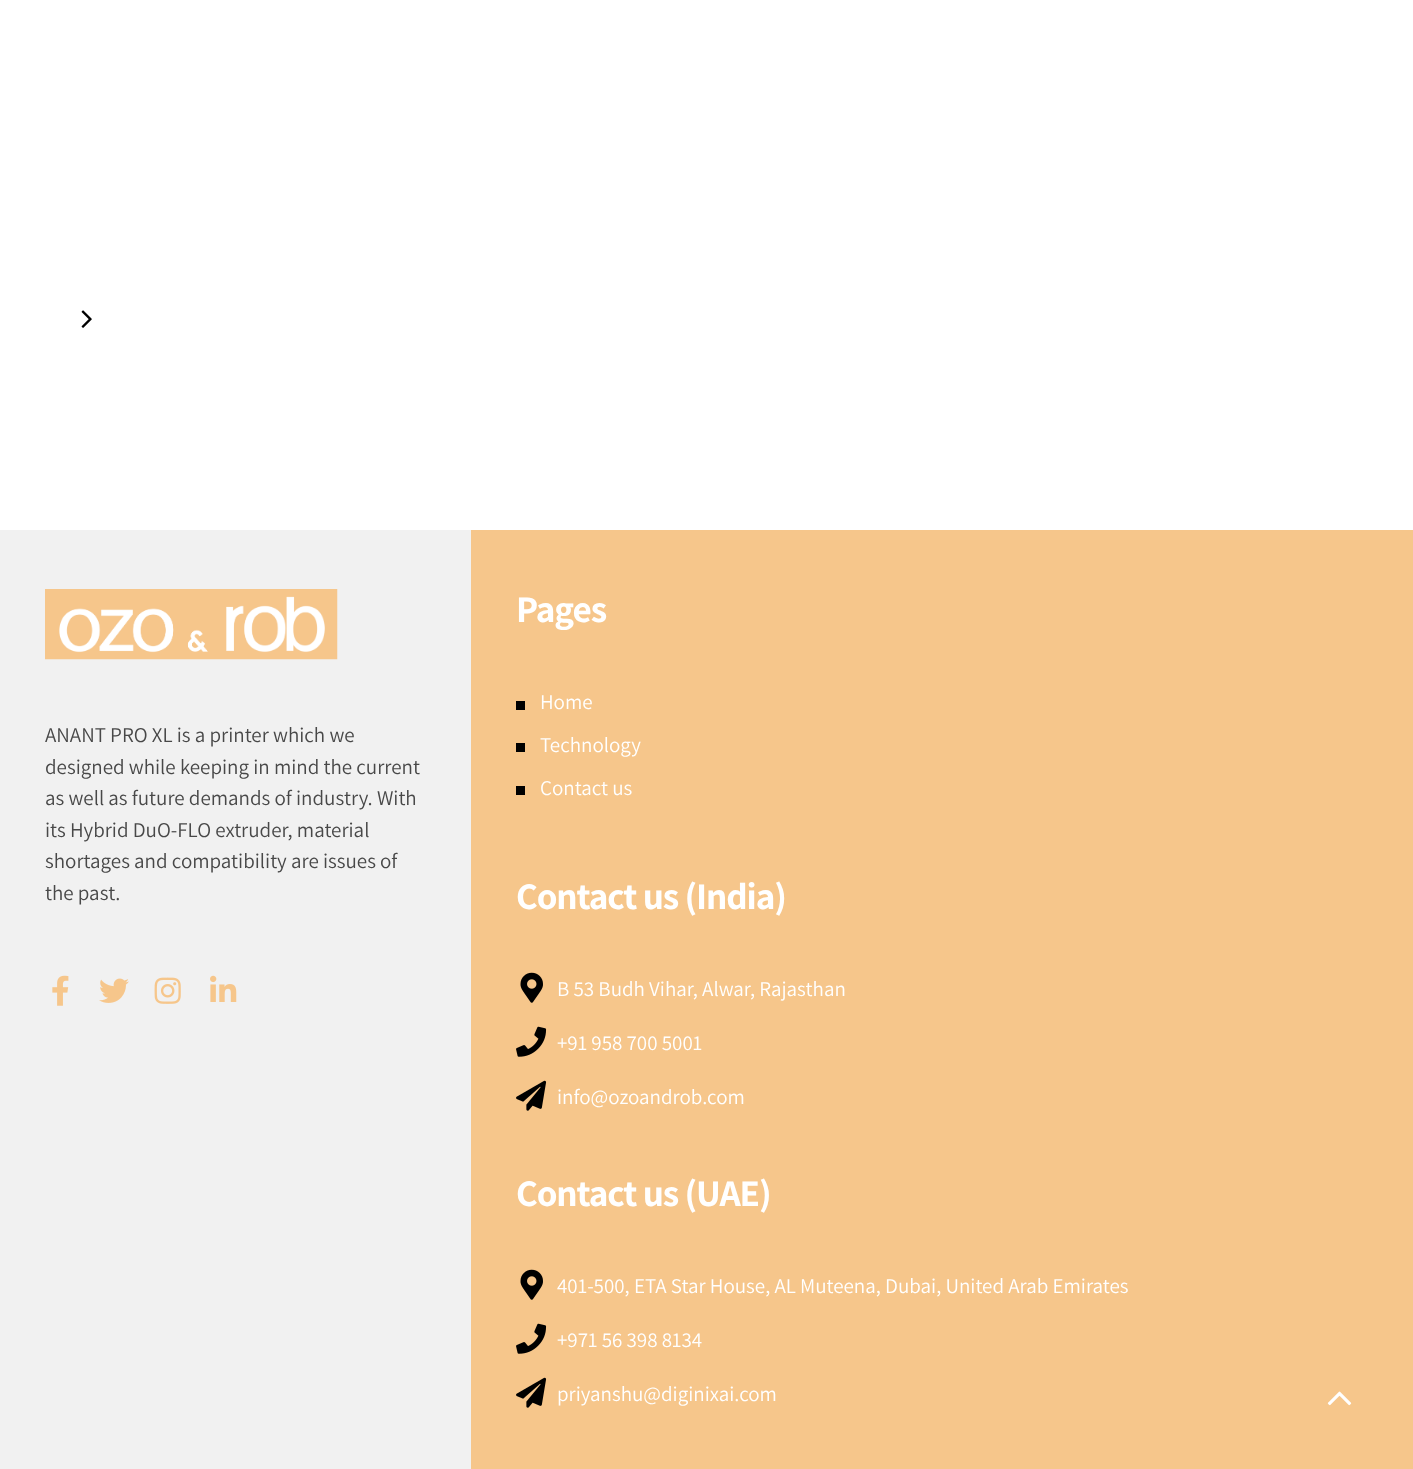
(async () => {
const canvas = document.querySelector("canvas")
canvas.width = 1413
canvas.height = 1469
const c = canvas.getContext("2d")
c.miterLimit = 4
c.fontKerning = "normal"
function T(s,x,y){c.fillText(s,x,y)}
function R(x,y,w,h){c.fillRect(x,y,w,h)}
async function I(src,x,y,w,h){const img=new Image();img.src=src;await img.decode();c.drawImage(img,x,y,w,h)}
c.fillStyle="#fff"
R(0,0,1413,1469)
await I("1.png",81,310,11,18)
c.fillStyle="#f6c68b"
R(471,530,942,939)
c.fillStyle="#f1f1f1"
R(0,530,471,939)
await I("2.png",45,589,293,71)
c.font="21px Assistant"
c.fillStyle="#484848"
T("ANANT PRO XL is a printer which we",45,742)
T("designed while keeping in mind the current",45,774)
T("as well as future demands of industry. With",45,805)
T("its Hybrid DuO-FLO extruder, material",45,837)
T("shortages and compatibility are issues of",45,868)
T("the past.",45,900)
await I("3.png",52,975,17,31)
await I("4.png",99,978,30,25)
await I("5.png",154,977,27,27)
await I("6.png",210,975,27,27)
c.letterSpacing="-1.1px"
c.font="bold 37.5px Assistant"
c.fillStyle="#fff"
T("Pages",516,622)
c.fillStyle="#000"
R(516,701,9,9)
c.letterSpacing="0px"
c.font="21px Assistant"
c.fillStyle="#fff"
T("Home",540,709)
c.fillStyle="#000"
R(516,743,9,9)
c.fillStyle="#fff"
T("Technology",540,752)
c.fillStyle="#000"
R(516,786,9,9)
c.fillStyle="#fff"
T("Contact us",540,795)
c.letterSpacing="-1.1px"
c.font="bold 37.5px Assistant"
T("Contact us (India)",516,909)
await I("7.png",520,972,23,31)
c.letterSpacing="0px"
c.font="21px Assistant"
T("B 53 Budh Vihar, Alwar, Rajasthan",557,996)
await I("8.png",516,1026,31,31)
T("+91 958 700 5001",557,1050)
await I("9.png",516,1080,31,31)
T("info@ozoandrob.com",557,1104)
c.letterSpacing="-1.1px"
c.font="bold 37.5px Assistant"
T("Contact us (UAE)",516,1206)
await I("7.png",520,1269,23,31)
c.letterSpacing="0px"
c.font="21px Assistant"
T("401-500, ETA Star House, AL Muteena, Dubai, United Arab Emirates",557,1293)
await I("8.png",516,1323,31,31)
T("+971 56 398 8134",557,1347)
await I("9.png",516,1377,31,31)
T("priyanshu@diginixai.com",557,1401)
await I("10.png",1327,1391,25,15)
})()
